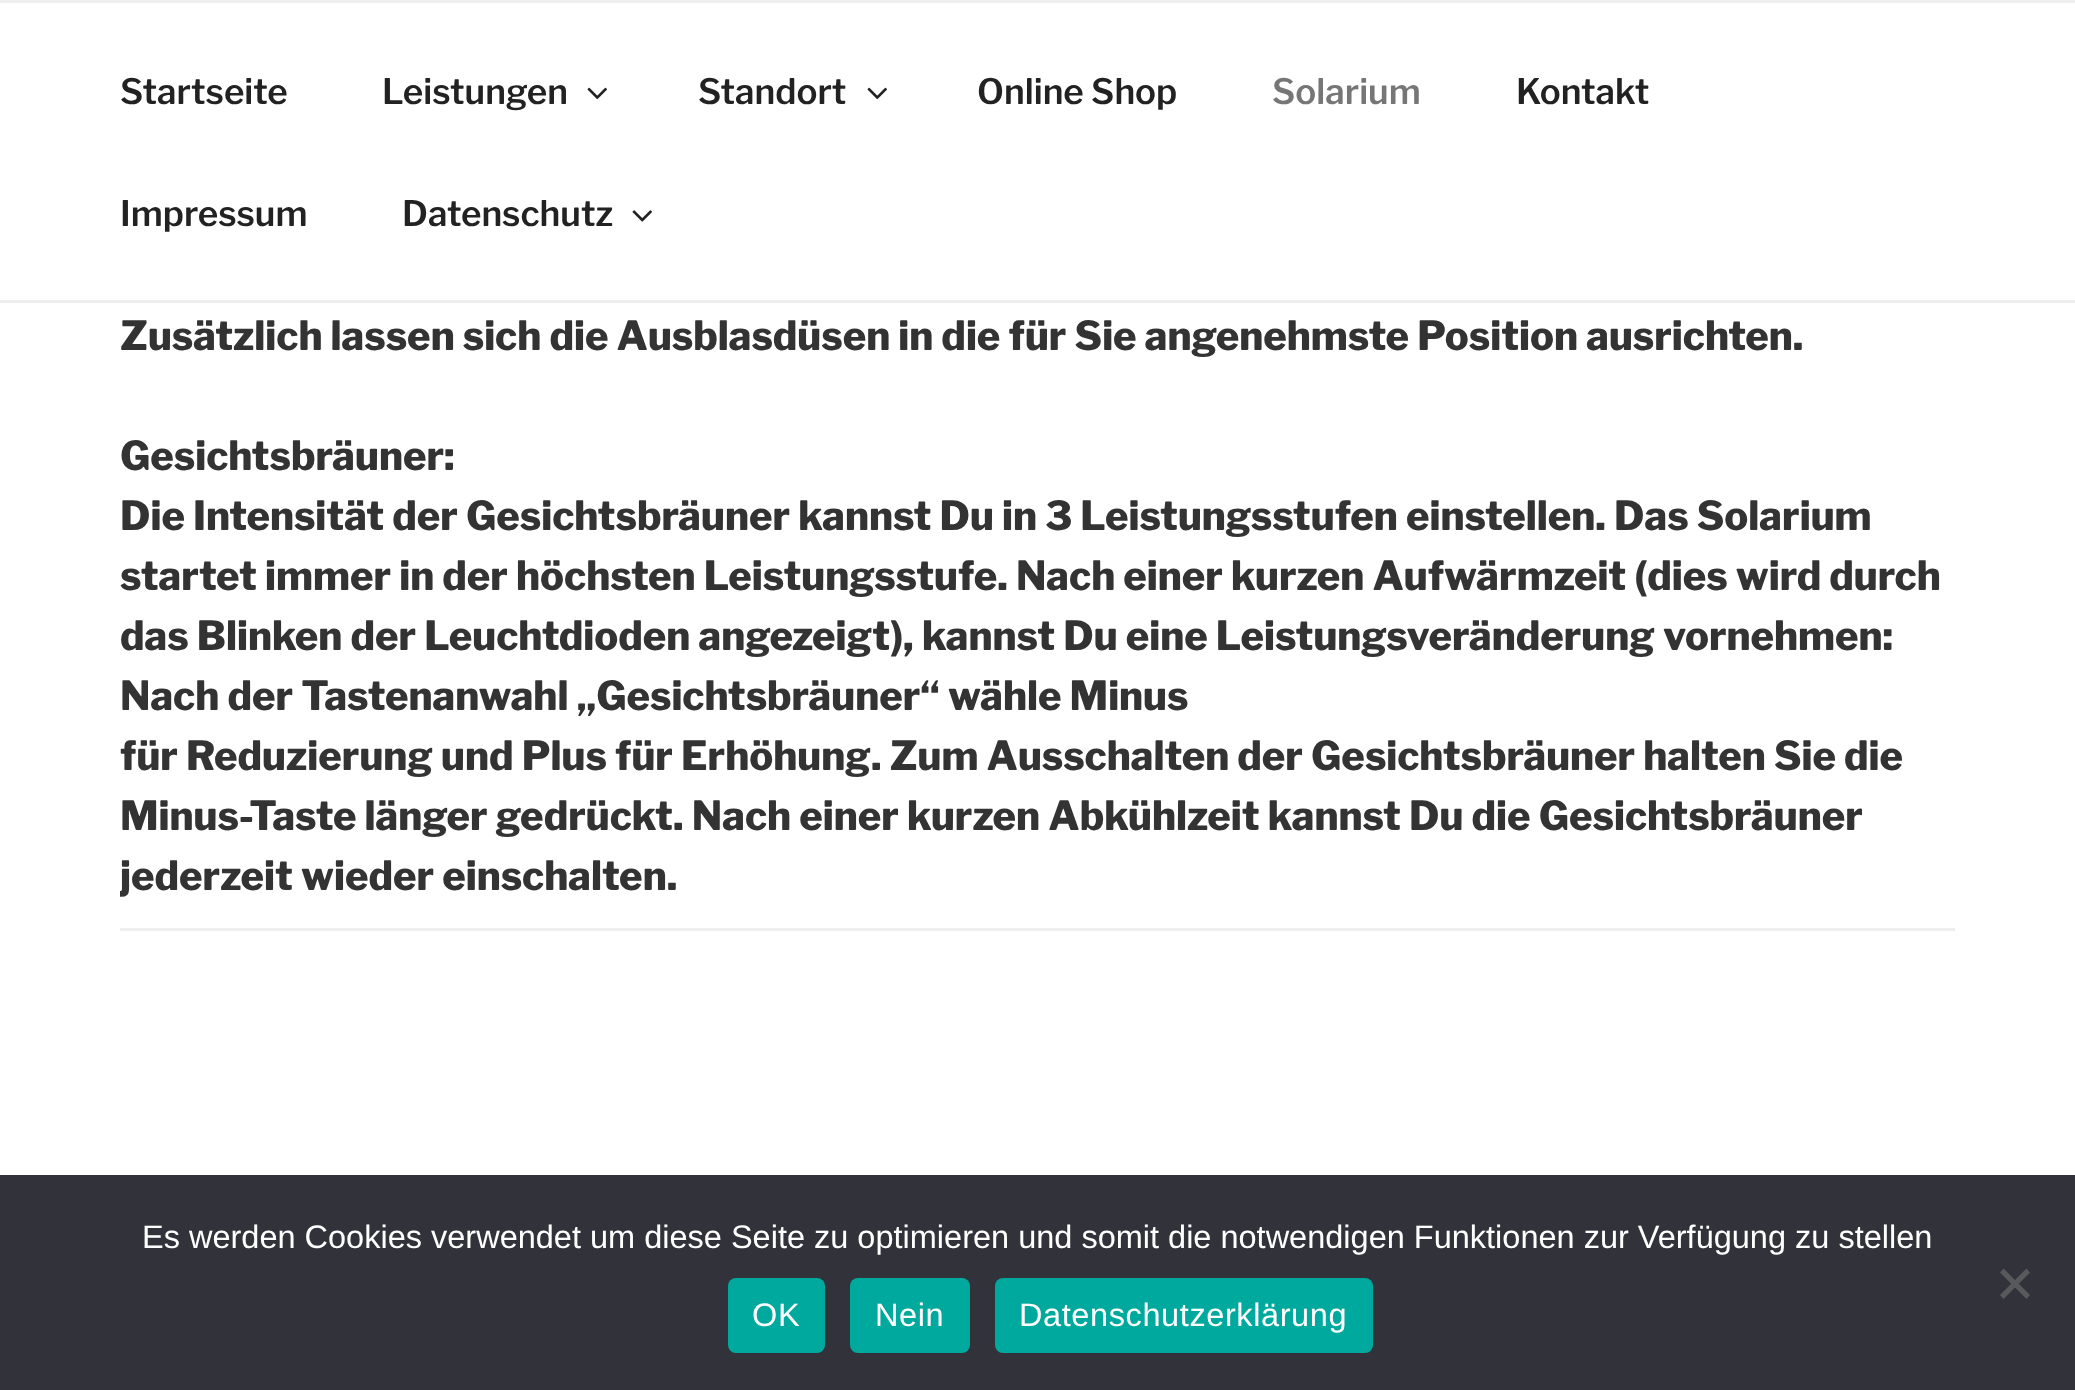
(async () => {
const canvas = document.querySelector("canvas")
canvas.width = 2075
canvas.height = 1390
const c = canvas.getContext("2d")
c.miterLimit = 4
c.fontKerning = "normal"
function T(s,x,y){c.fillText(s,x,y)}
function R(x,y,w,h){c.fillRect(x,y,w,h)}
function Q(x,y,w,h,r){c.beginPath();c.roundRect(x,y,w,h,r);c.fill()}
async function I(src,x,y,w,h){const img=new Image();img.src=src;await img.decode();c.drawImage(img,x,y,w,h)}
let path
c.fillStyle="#fff"
R(0,0,2075,1390)
c.fillStyle="#eee"
R(0,0,2075,3)
R(0,300,2075,3)
c.font="100 35px 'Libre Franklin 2'"
c.fillStyle="#222"
T("Startseite",120,104)
T("Leistungen",382,104)
await I("1.png",587,87,20,13)
T("Standort",698,104)
await I("1.png",867,87,20,13)
T("Online Shop",977,104)
c.fillStyle="#767676"
T("Solarium",1272,104)
c.fillStyle="#222"
T("Kontakt",1516,104)
T("Impressum",120,226)
T("Datenschutz",402,226)
await I("2.png",632,210,20,12)
c.fillStyle="#eee"
R(120,928,1835,3)
c.font="100 40px Libre Franklin"
c.fillStyle="#333"
T("Zusätzlich lassen sich die Ausblasdüsen in die für Sie angenehmste Position ausrichten.",120,350)
T("Gesichtsbräuner:",120,470)
T("Die Intensität der Gesichtsbräuner kannst Du in 3 Leistungsstufen einstellen. Das Solarium",120,530)
T("startet immer in der höchsten Leistungsstufe. Nach einer kurzen Aufwärmzeit (dies wird durch",120,590)
T("das Blinken der Leuchtdioden angezeigt), kannst Du eine Leistungsveränderung vornehmen:",120,650)
T("Nach der Tastenanwahl „Gesichtsbräuner“ wähle Minus",120,710)
T("für Reduzierung und Plus für Erhöhung. Zum Ausschalten der Gesichtsbräuner halten Sie die",120,770)
T("Minus-Taste länger gedrückt. Nach einer kurzen Abkühlzeit kannst Du die Gesichtsbräuner",120,830)
c.save()
c.beginPath()
c.rect(120,0,1835,990)
c.clip()
T("jederzeit wieder einschalten.",120,890)
c.restore()
c.fillStyle="#32323a"
R(0,1175,2075,215)
c.font="32.5px Liberation Sans"
c.fillStyle="#fff"
T("Es werden Cookies verwendet um diese Seite zu optimieren und somit die notwendigen Funktionen zur Verfügung zu stellen",142,1248)
c.fillStyle="#59595d"
path = new Path2D("M2026.5 1268.5l3.5 4l-26.5 26.5l-3.5-4z")
c.fill(path)
path = new Path2D("M2000 1272.5l3.5-4l26.5 26.5l-3.5 4z")
c.fill(path)
c.fillStyle="#00a99d"
Q(728,1278,97,75,8)
c.letterSpacing="0.6px"
c.fillStyle="#fff"
T("OK",752,1326)
c.fillStyle="#00a99d"
Q(850,1278,120,75,8)
c.fillStyle="#fff"
T("Nein",875,1326)
c.fillStyle="#00a99d"
Q(995,1278,378,75,8)
c.fillStyle="#fff"
T("Datenschutzerklärung",1019,1326)
})()
